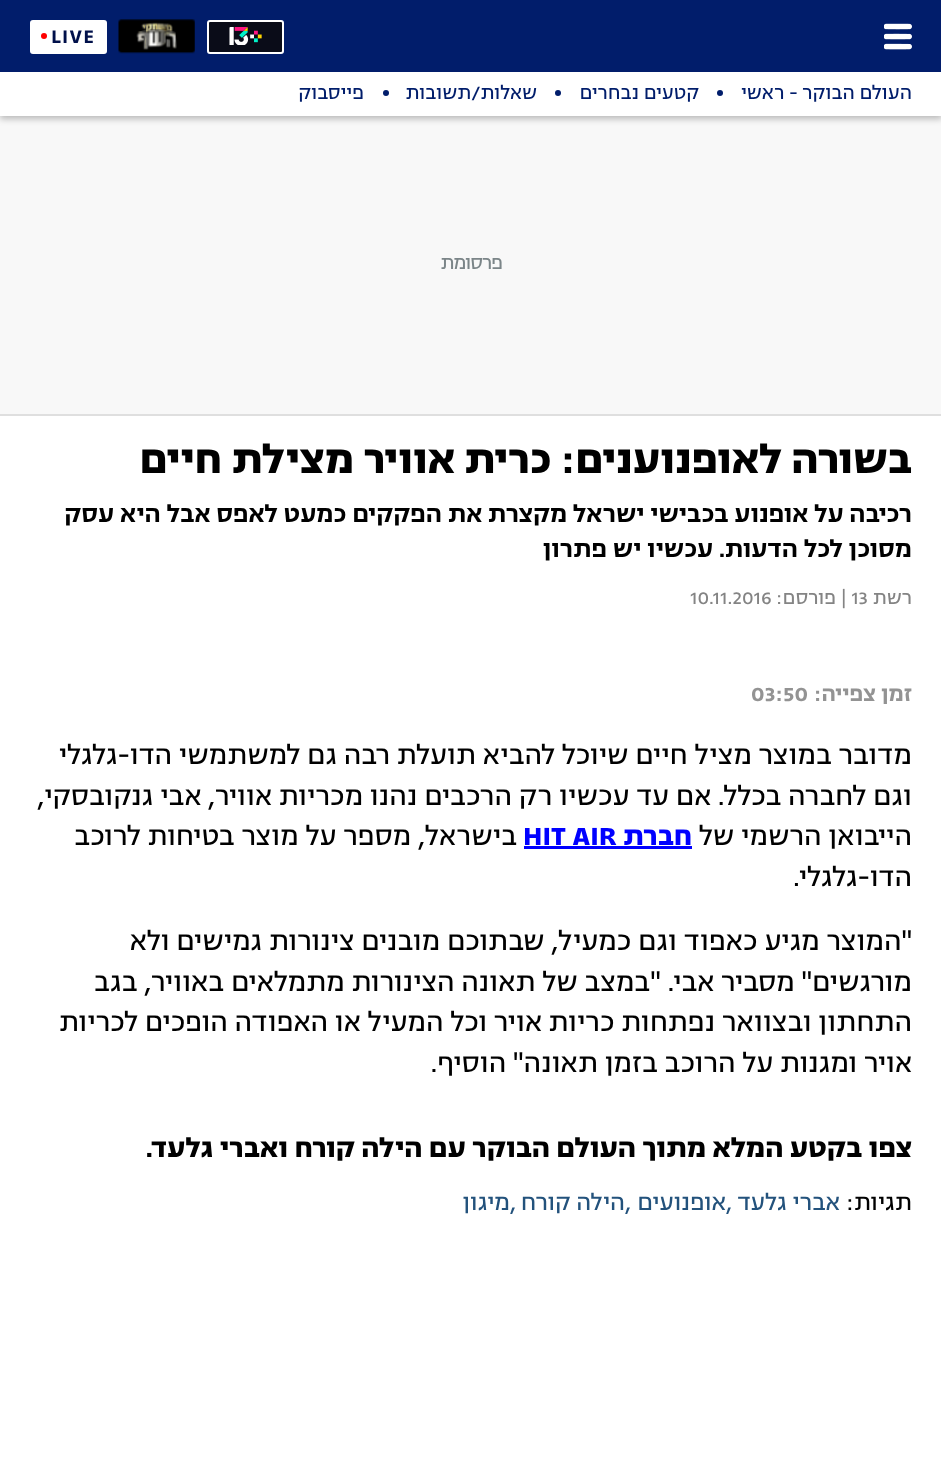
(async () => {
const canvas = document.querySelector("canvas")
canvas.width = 941
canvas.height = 1475
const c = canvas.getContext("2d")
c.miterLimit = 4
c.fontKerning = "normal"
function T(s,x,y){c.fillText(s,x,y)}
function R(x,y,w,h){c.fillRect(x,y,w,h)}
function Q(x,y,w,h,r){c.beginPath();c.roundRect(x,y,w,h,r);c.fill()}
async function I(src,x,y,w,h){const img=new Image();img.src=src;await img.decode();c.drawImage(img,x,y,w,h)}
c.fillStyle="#fff"
R(0,0,941,1475)
c.fillStyle="#f8f8f8"
R(0,116,941,298)
c.fillStyle="#00000040"
c.filter="blur(3px)"
c.beginPath()
c.rect(0,3,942,116)
c.fill()
c.filter="none"
c.fillStyle="#011d6b"
R(0,0,941,72)
await I("1.png",884,23,28,27)
c.fillStyle="#0a0c18"
c.beginPath()
c.roundRect(208,21,75,32,2)
c.fill()
c.strokeStyle="#fff"
c.lineWidth=2
c.stroke()
await I("2.png",229,27,33,18)
await I("3.png",118,19,77,35)
c.fillStyle="#fff"
Q(30,20,77,34,3)
c.letterSpacing="1px"
c.font="600 22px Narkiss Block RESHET"
c.fillStyle="#00104a"
T("LIVE",51,43)
c.fillStyle="#f00"
c.beginPath()
c.arc(44,36,3,0,7)
c.fill()
c.fillStyle="#fff"
R(0,72,941,44)
c.letterSpacing="0px"
c.direction="rtl"
c.font="21px Narkiss Block RESHET"
c.fillStyle="#011d6b"
T("העולם הבוקר - ראשי",912,99)
c.beginPath()
c.arc(720,93,3,0,7)
c.fill()
T("קטעים נבחרים",699,99)
c.beginPath()
c.arc(558,93,3,0,7)
c.fill()
T("שאלות/תשובות",537,99)
c.beginPath()
c.arc(386,93,3,0,7)
c.fill()
T("פייסבוק",364,99)
c.fillStyle="#dfdfdf"
R(0,414,941,2)
c.letterSpacing="-1px"
c.fillStyle="#7b8588"
T("פרסומת",502,269)
c.letterSpacing="0px"
c.font="bold 45px Narkiss Block RESHET"
c.fillStyle="#000"
T("בשורה לאופנוענים: כרית אוויר מצילת חיים",912,473)
c.font="600 27px Narkiss Block RESHET"
T("רכיבה על אופנוע בכבישי ישראל מקצרת את הפקקים כמעט לאפס אבל היא עסק",912,522)
T("מסוכן לכל הדעות. עכשיו יש פתרון",912,557)
c.font="21px Narkiss Block RESHET"
c.fillStyle="#848484"
T("רשת",912,604)
c.direction="ltr"
T("| 13",841,604)
c.direction="rtl"
T("פורסם:",836,604)
c.direction="ltr"
T("10.11.2016",690,604)
c.direction="rtl"
c.font="600 24px Narkiss Block RESHET"
c.fillStyle="#939393"
T("זמן צפייה:",912,701)
c.direction="ltr"
T("03:50",751,701)
c.direction="rtl"
c.font="30px Narkiss Block RESHET"
c.fillStyle="#000"
T("מדובר במוצר מציל חיים שיוכל להביא תועלת רבה גם למשתמשי הדו-גלגלי",912,764)
T("וגם לחברה בכלל. אם עד עכשיו רק הרכבים נהנו מכריות אוויר, אבי גנקובסקי,",912,805)
T("הייבואן הרשמי של",912,845)
c.font="bold 30px Narkiss Block RESHET"
c.fillStyle="#00f"
T("חברת",692,845)
R(524,846,168,3)
c.direction="ltr"
T("HIT AIR",523,845)
c.direction="rtl"
c.font="30px Narkiss Block RESHET"
c.fillStyle="#000"
T("בישראל, מספר על מוצר בטיחות לרוכב",517,845)
T("הדו-גלגלי.",912,886)
T("\"המוצר מגיע כאפוד וגם כמעיל, שבתוכם מובנים צינורות גמישים ולא",912,950)
T("מורגשים\" מסביר אבי. \"במצב של תאונה הצינורות מתמלאים באוויר, בגב",912,991)
T("התחתון ובצוואר נפתחות כריות אויר וכל המעיל או האפודה הופכים לכריות",912,1031)
T("אויר ומגנות על הרוכב בזמן תאונה\" הוסיף.",912,1072)
c.font="bold 30px Narkiss Block RESHET"
T("צפו בקטע המלא מתוך העולם הבוקר עם הילה קורח ואברי גלעד.",912,1157)
c.font="25.5px Narkiss Block RESHET"
T("תגיות:",912,1210)
c.fillStyle="#23527c"
T("אברי גלעד",840,1210)
c.direction="ltr"
T(",",726,1210)
c.direction="rtl"
T("אופנועים",726,1210)
c.direction="ltr"
T(",",625,1210)
c.direction="rtl"
T("הילה קורח",625,1210)
c.direction="ltr"
T(",",510,1210)
c.direction="rtl"
T("מיגון",510,1210)
})()
